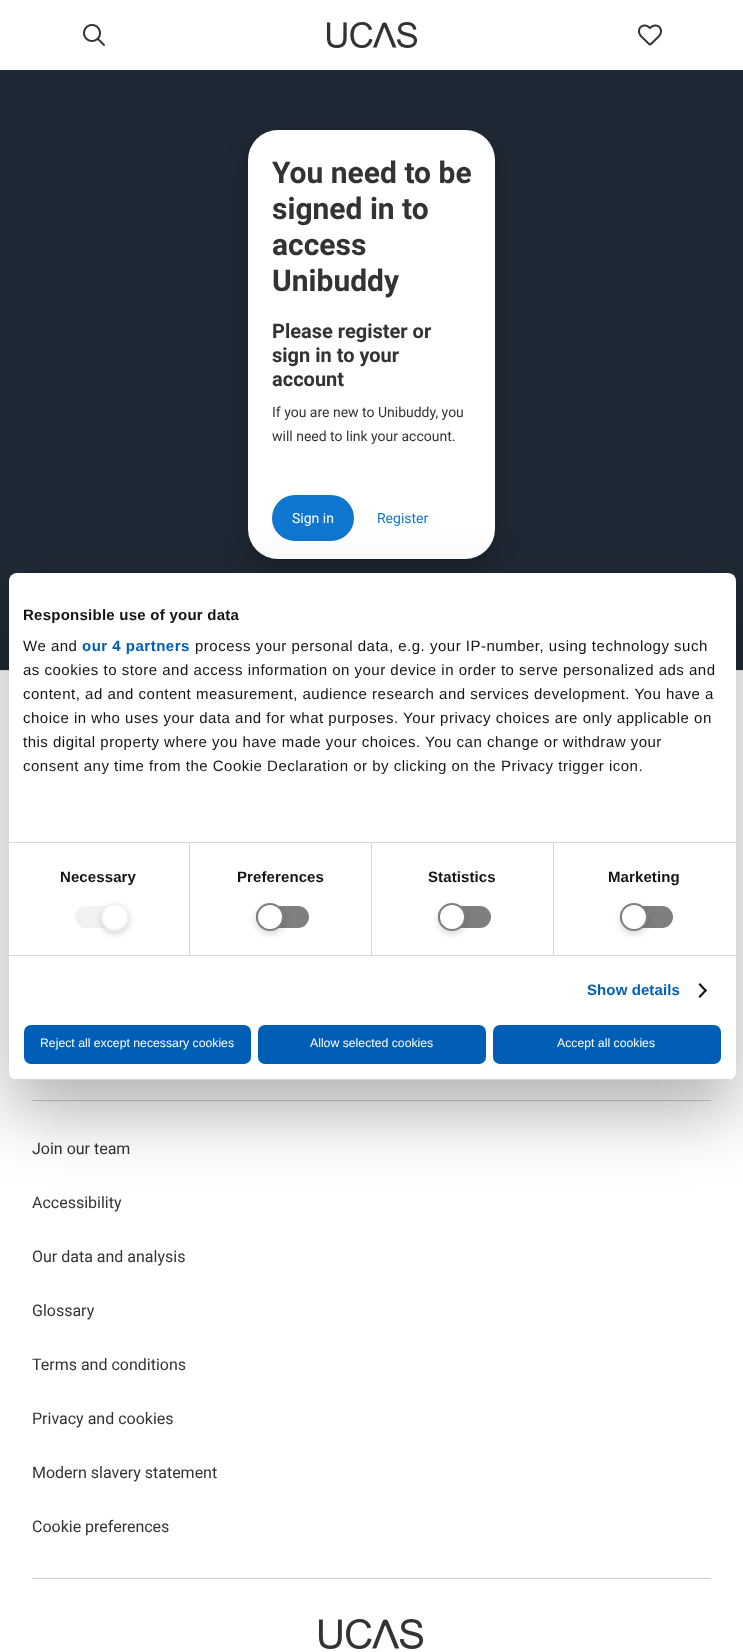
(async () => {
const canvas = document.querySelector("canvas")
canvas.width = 743
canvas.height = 1652
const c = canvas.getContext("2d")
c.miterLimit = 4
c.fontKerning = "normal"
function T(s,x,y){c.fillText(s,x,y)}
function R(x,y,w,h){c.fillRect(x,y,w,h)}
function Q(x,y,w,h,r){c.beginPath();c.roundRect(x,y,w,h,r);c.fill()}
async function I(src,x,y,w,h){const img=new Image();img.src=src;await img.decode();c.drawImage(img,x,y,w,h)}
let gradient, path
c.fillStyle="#fff"
R(0,0,743,1652)
await I("1.png",83,24,22,22)
await I("2.png",326,22,92,26)
await I("3.png",638,24,24,22)
c.fillStyle="#1f2935"
R(0,70,743,600)
c.fillStyle="#00000040"
c.filter="blur(12.5px)"
c.beginPath()
c.roundRect(248,137,247,429,30)
c.fill()
c.filter="none"
c.fillStyle="#fff"
Q(248,130,247,429,30)
c.font="bold 30px Roboto"
c.fillStyle="#333"
T("You need to be",272,183)
T("signed in to",272,219)
T("access",272,255)
T("Unibuddy",272,291)
c.font="bold 20px Roboto"
T("Please register or",272,338)
T("sign in to your",272,362)
T("account",272,386)
c.font="14px Roboto"
T("If you are new to Unibuddy, you",272,417)
T("will need to link your account.",272,441)
c.fillStyle="#1077d0"
c.beginPath()
c.roundRect(273,496,80,44,22)
c.fill()
c.strokeStyle="#1077d0"
c.lineWidth=2
c.stroke()
c.fillStyle="#fff"
T("Sign in",292,523)
c.fillStyle="#1077d0"
T("Register",377,523)
c.fillStyle="#e5e5e5"
R(0,670,743,1)
c.fillStyle="#ccc"
R(32,1100,679,1)
c.font="16px Roboto"
c.fillStyle="#333"
T("Join our team",32,1154)
T("Accessibility",32,1208)
T("Our data and analysis",32,1262)
T("Glossary",32,1316)
T("Terms and conditions",32,1370)
T("Privacy and cookies",32,1424)
T("Modern slavery statement",32,1478)
c.fillStyle="#ccc"
R(32,1578,679,1)
c.fillStyle="#333"
T("Cookie preferences",32,1532)
await I("4.png",319,1619,105,30)
c.fillStyle="#0000004d"
c.filter="blur(34px)"
c.beginPath()
c.roundRect(9,605,727,507,8)
c.fill()
c.filter="none"
c.fillStyle="#fff"
Q(9,573,727,507,8)
c.fillStyle="#d6d6d6"
R(9,842,727,1)
c.letterSpacing="0.25px"
c.font="bold 15px Liberation Sans"
c.fillStyle="#141414"
T("Responsible use of your data",23,620)
c.letterSpacing="0.5px"
c.font="15px Liberation Sans"
T("We and",23,651)
c.font="bold 15px Liberation Sans"
c.fillStyle="#005eb7"
T("our 4 partners",82,651)
c.font="15px Liberation Sans"
c.fillStyle="#141414"
T("process your personal data, e.g. your IP-number, using technology such",195,651)
T("as cookies to store and access information on your device in order to serve personalized ads and",23,675)
T("content, ad and content measurement, audience research and services development. You have a",23,699)
T("choice in who uses your data and for what purposes. Your privacy choices are only applicable on",23,723)
T("this digital property where you have made your choices. You can change or withdraw your",23,747)
T("consent any time from the Cookie Declaration or by clicking on the Privacy trigger icon.",23,771)
gradient = c.createLinearGradient(366,842,366,767)
gradient.addColorStop(0,"#fff")
gradient.addColorStop(.5,"#ffffffcc")
gradient.addColorStop(1,"#ffffff00")
c.fillStyle = gradient
R(24,768,618,7)
c.fillStyle="#d6d6d6"
R(9,955,727,1)
R(189,843,1,112)
c.letterSpacing="0.1px"
c.font="bold 15px Liberation Sans"
c.fillStyle="#141414"
T("Necessary",60,882)
c.fillStyle="#f2f2f2"
c.beginPath()
c.roundRect(77,908,48,18,9)
c.fill()
c.strokeStyle="#f2f2f2"
c.lineWidth=4
c.stroke()
c.fillStyle="#00000029"
c.filter="blur(3px)"
c.beginPath()
c.roundRect(101,906,28,28,14)
c.fill()
c.filter="none"
c.fillStyle="#fff"
c.beginPath()
c.arc(115,917,13,0,7)
c.fill()
c.lineWidth=2
c.stroke()
c.fillStyle="#d6d6d6"
R(371,843,1,112)
c.fillStyle="#141414"
T("Preferences",237,882)
c.fillStyle="#7f7f7f"
c.beginPath()
c.roundRect(258,908,49,18,9)
c.fill()
c.strokeStyle="#7f7f7f"
c.lineWidth=4
c.stroke()
c.fillStyle="#00000029"
c.filter="blur(3px)"
c.beginPath()
c.roundRect(256,906,28,28,14)
c.fill()
c.filter="none"
c.fillStyle="#fff"
c.beginPath()
c.arc(270,917,13,0,7)
c.fill()
c.lineWidth=2
c.stroke()
c.fillStyle="#d6d6d6"
R(553,843,1,112)
c.fillStyle="#141414"
T("Statistics",428,882)
c.fillStyle="#7f7f7f"
c.beginPath()
c.roundRect(440,908,49,18,9)
c.fill()
c.lineWidth=4
c.stroke()
c.fillStyle="#00000029"
c.filter="blur(3px)"
c.beginPath()
c.roundRect(438,906,28,28,14)
c.fill()
c.filter="none"
c.fillStyle="#fff"
c.beginPath()
c.arc(452,917,13,0,7)
c.fill()
c.lineWidth=2
c.stroke()
c.fillStyle="#141414"
T("Marketing",608,882)
c.fillStyle="#7f7f7f"
c.beginPath()
c.roundRect(622,908,49,18,9)
c.fill()
c.lineWidth=4
c.stroke()
c.fillStyle="#00000029"
c.filter="blur(3px)"
c.beginPath()
c.roundRect(620,906,28,28,14)
c.fill()
c.filter="none"
c.fillStyle="#fff"
c.beginPath()
c.arc(634,917,13,0,7)
c.fill()
c.lineWidth=2
c.stroke()
c.fillStyle="#005eb7"
T("Show details",587,995)
c.fillStyle="#141414"
path = new Path2D("M700 983l7 7.5l-1.5 1.5l-7-7.5z")
c.fill(path)
path = new Path2D("M705.5 989l1.5 1.5l-7 7.5l-1.5-1.5z")
c.fill(path)
c.save()
c.beginPath()
c.roundRect(9,573,727,507,8)
c.clip()
c.fillStyle="#d6d6d6"
R(9,1079,727,1)
c.restore()
c.fillStyle="#005eb7"
Q(24,1025,227,39,7)
c.letterSpacing="0px"
c.font="12.25px Liberation Sans"
c.fillStyle="#fff"
T("Reject all except necessary cookies",40,1047)
c.fillStyle="#005eb7"
Q(258,1025,228,39,7)
c.fillStyle="#fff"
T("Allow selected cookies",310,1047)
c.fillStyle="#005eb7"
Q(493,1025,228,39,7)
c.fillStyle="#fff"
T("Accept all cookies",557,1047)
})()
